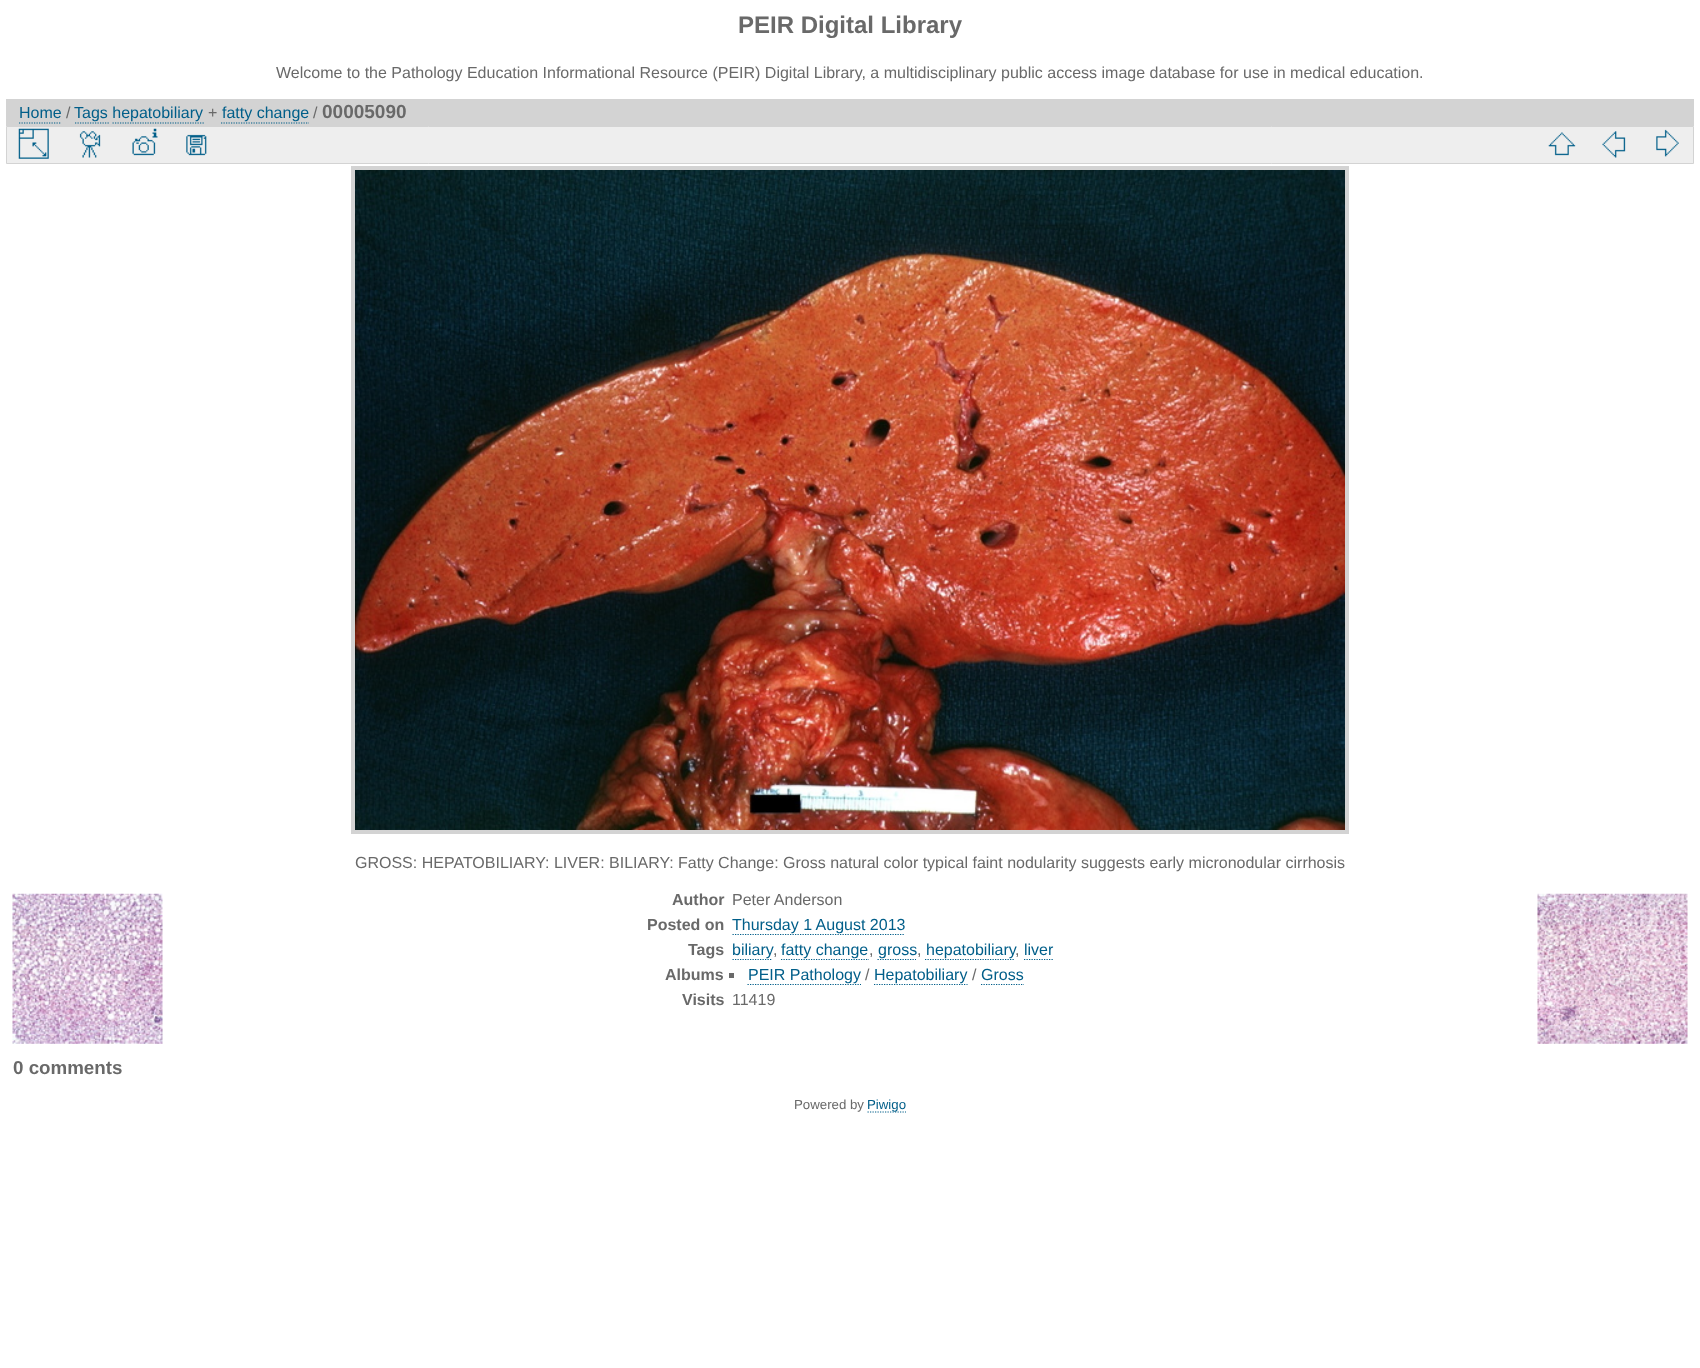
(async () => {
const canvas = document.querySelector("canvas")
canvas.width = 1700
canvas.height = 1368
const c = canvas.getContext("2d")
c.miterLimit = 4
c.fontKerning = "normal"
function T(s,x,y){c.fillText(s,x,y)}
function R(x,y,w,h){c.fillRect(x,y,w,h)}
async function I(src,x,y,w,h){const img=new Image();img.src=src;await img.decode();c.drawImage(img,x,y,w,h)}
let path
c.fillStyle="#fff"
R(0,0,1700,1368)
c.font="bold 24px Liberation Sans"
c.fillStyle="#696969"
T("PEIR Digital Library",738,33)
c.font="16px Liberation Sans"
T("Welcome to the Pathology Education Informational Resource (PEIR) Digital Library, a multidisciplinary public access image database for use in medical education.",276,78)
c.fillStyle="#d3d3d3"
R(6,99,1688,27)
c.fillStyle="#005e89"
T("Home",19,118)
path = new Path2D("M19 123h42")
c.strokeStyle="#005e89"
c.lineWidth=1.2
c.setLineDash([1.25,1.25])
c.stroke(path)
c.fillStyle="#696969"
T("/",66,118)
c.fillStyle="#005e89"
T("Tags hepatobiliary",74,118)
path = new Path2D("M75 123h34")
c.stroke(path)
c.fillStyle="#696969"
T("+",208,118)
c.fillStyle="#005e89"
T("fatty change",222,118)
path = new Path2D("M221 123h88")
c.stroke(path)
c.fillStyle="#696969"
T("/",313,118)
c.font="bold 19px Liberation Sans"
T("00005090",322,118)
path = new Path2D("M112.5 123h91.5")
c.stroke(path)
c.fillStyle="#eee"
c.beginPath()
c.rect(6.5,126.5,1687,37)
c.fill()
c.strokeStyle="#d3d3d3"
c.lineWidth=1
c.setLineDash([])
c.stroke()
await I("1.png",18,128,31,31)
await I("2.png",79,131,22,27)
await I("3.png",132,128,26,28)
await I("4.png",186,134,21,22)
await I("5.png",1548,132,28,24)
await I("6.png",1602,131,24,27)
await I("7.png",1656,129,23,28)
c.lineWidth=4
c.strokeRect(353,168,994,664)
await I("8.png",355,170,990,660)
c.font="16px Liberation Sans"
c.fillStyle="#696969"
T("GROSS: HEPATOBILIARY: LIVER: BILIARY: Fatty Change: Gross natural color typical faint nodularity suggests early micronodular cirrhosis",355,868)
await I("9.png",12,893,151,151)
await I("10.png",1537,893,151,151)
c.font="bold 16px Liberation Sans"
T("Author",672,905)
c.font="16px Liberation Sans"
T("Peter Anderson",732,905)
c.font="bold 16px Liberation Sans"
T("Posted on",647,930)
path = new Path2D("M732.5 934.5h172.5")
c.strokeStyle="#005e89"
c.lineWidth=1.2
c.setLineDash([1.25,1.25])
c.stroke(path)
c.font="16px Liberation Sans"
c.fillStyle="#005e89"
T("Thursday 1 August 2013",732,930)
c.font="bold 16px Liberation Sans"
c.fillStyle="#696969"
T("Tags",688,955)
path = new Path2D("M732.5 959.5h40")
c.stroke(path)
c.font="16px Liberation Sans"
c.fillStyle="#005e89"
T("biliary",732,955)
c.fillStyle="#696969"
T(",",773,955)
path = new Path2D("M781 959.5h88")
c.stroke(path)
c.fillStyle="#005e89"
T("fatty change",781,955)
c.fillStyle="#696969"
T(",",869,955)
path = new Path2D("M877.5 959.5h38.5")
c.stroke(path)
c.fillStyle="#005e89"
T("gross",878,955)
c.fillStyle="#696969"
T(",",917,955)
path = new Path2D("M925 959.5h90")
c.stroke(path)
c.fillStyle="#005e89"
T("hepatobiliary",926,955)
c.fillStyle="#696969"
T(",",1015,955)
c.fillStyle="#005e89"
T("liver",1024,955)
path = new Path2D("M1024 959.5h30")
c.stroke(path)
c.font="bold 16px Liberation Sans"
c.fillStyle="#696969"
T("Albums",665,980)
R(729,973,5,5)
path = new Path2D("M747.5 984.5h113.5")
c.stroke(path)
c.font="16px Liberation Sans"
c.fillStyle="#005e89"
T("PEIR Pathology",748,980)
c.fillStyle="#696969"
T("/",865,980)
path = new Path2D("M874 984.5h93.5")
c.stroke(path)
c.fillStyle="#005e89"
T("Hepatobiliary",874,980)
c.fillStyle="#696969"
T("/",972,980)
c.fillStyle="#005e89"
T("Gross",981,980)
path = new Path2D("M981 984.5h43")
c.stroke(path)
c.font="bold 16px Liberation Sans"
c.fillStyle="#696969"
T("Visits",682,1005)
c.font="16px Liberation Sans"
T("11419",732,1005)
c.font="bold 18.75px Liberation Sans"
T("0 comments",13,1074)
c.font="13.25px Liberation Sans"
T("Powered by",794,1109)
path = new Path2D("M867.5 1112h38.5")
c.stroke(path)
c.fillStyle="#005e89"
T("Piwigo",867,1109)
})()
